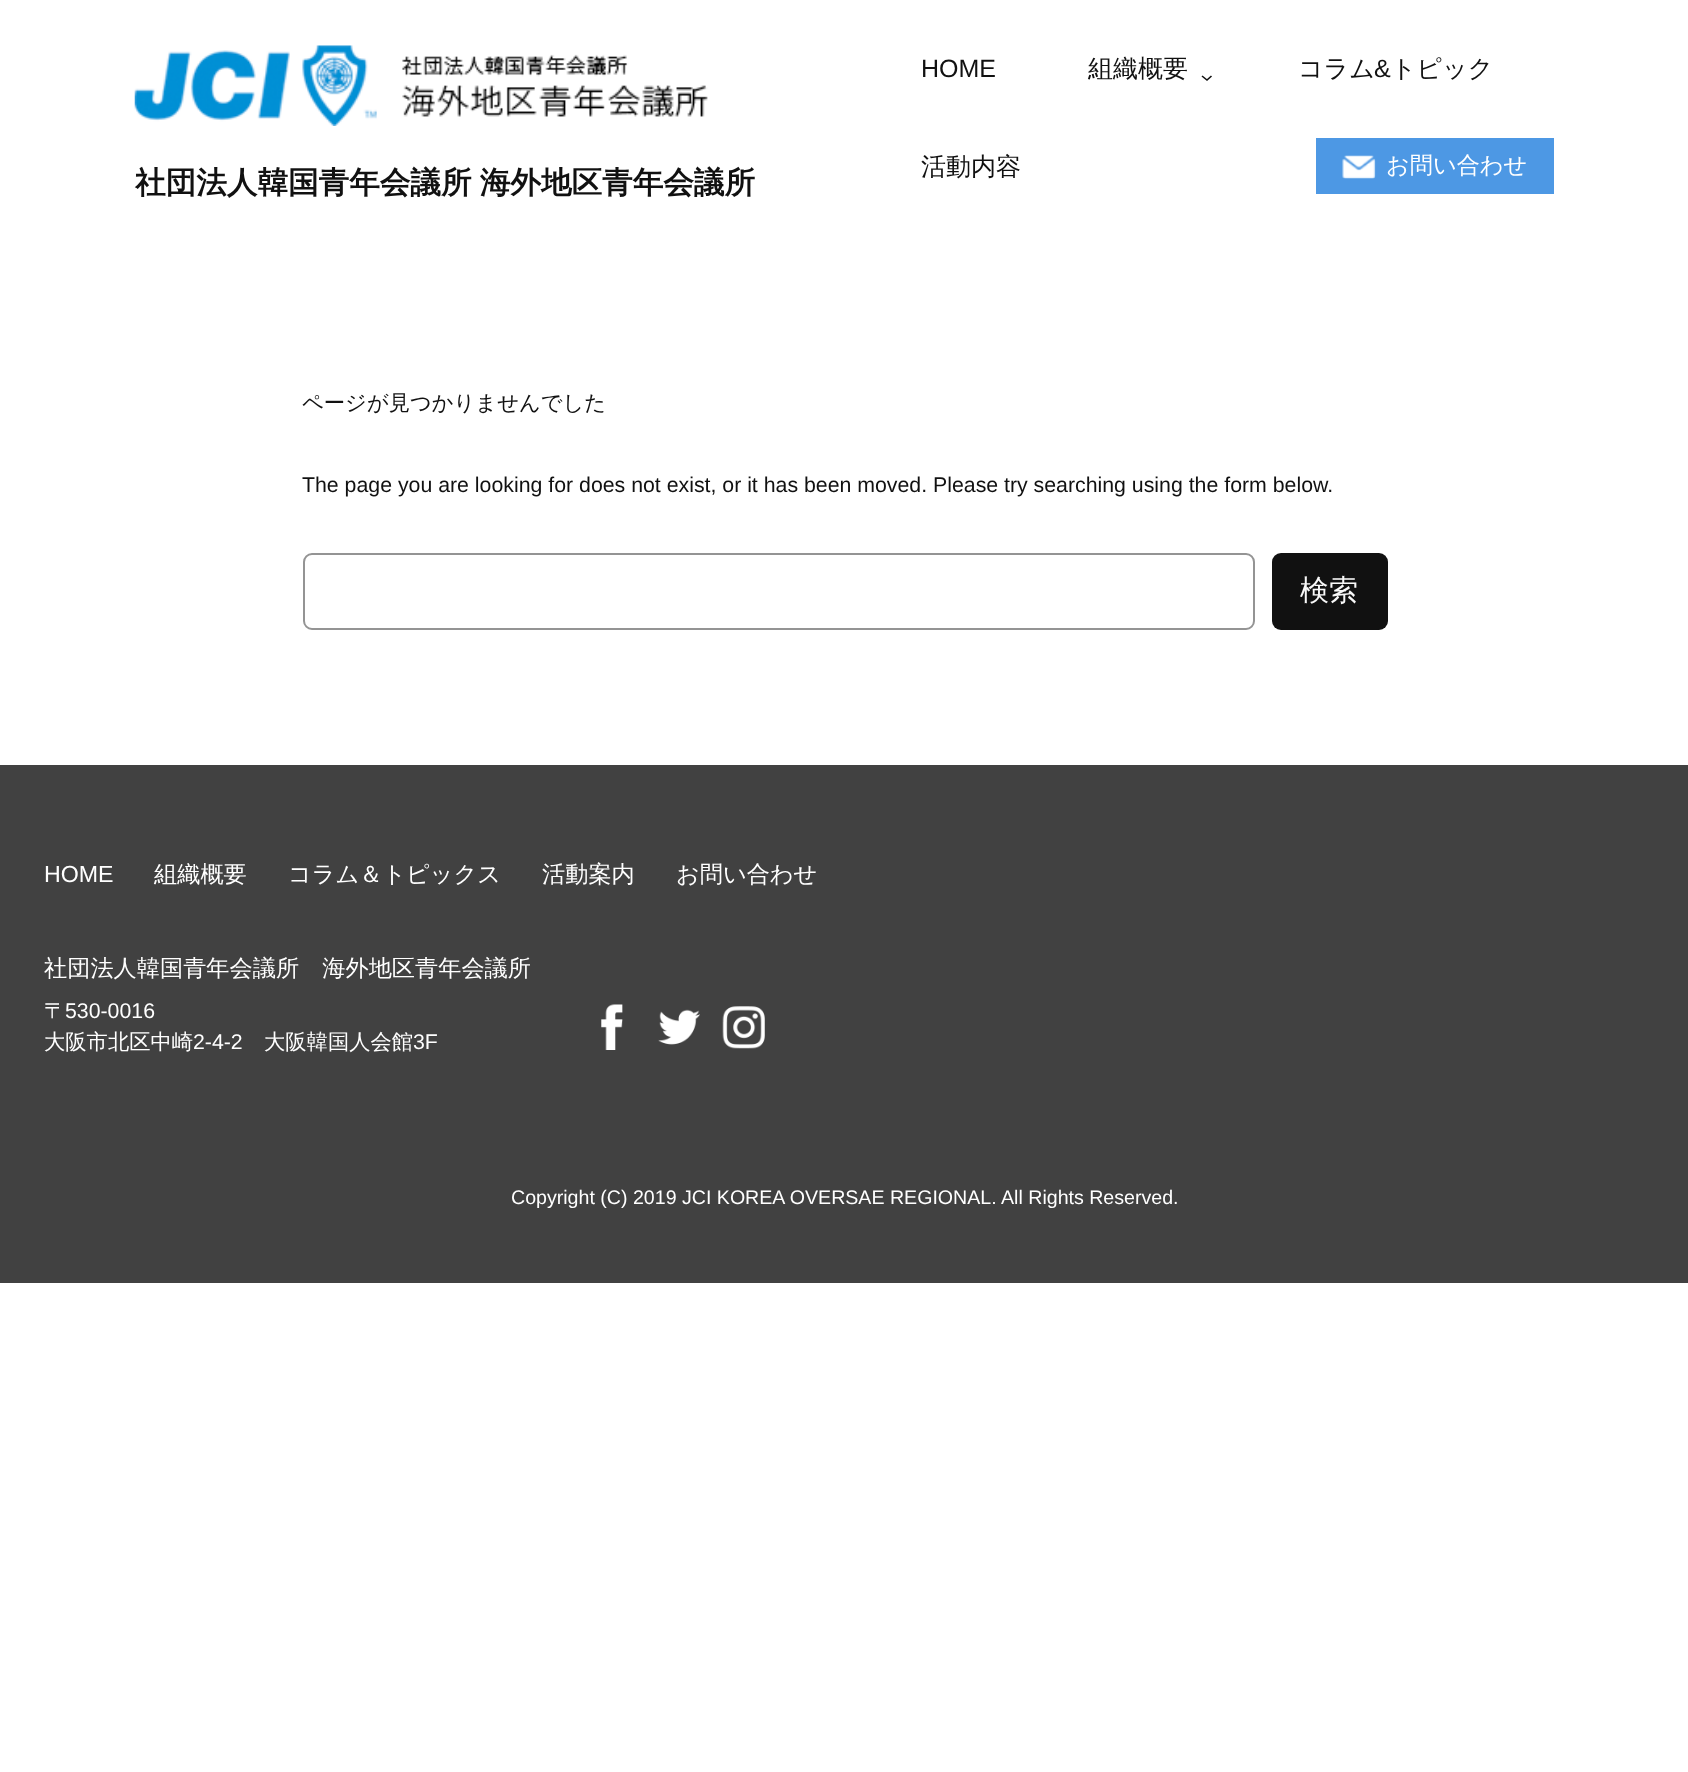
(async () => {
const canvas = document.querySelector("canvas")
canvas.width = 1688
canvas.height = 1772
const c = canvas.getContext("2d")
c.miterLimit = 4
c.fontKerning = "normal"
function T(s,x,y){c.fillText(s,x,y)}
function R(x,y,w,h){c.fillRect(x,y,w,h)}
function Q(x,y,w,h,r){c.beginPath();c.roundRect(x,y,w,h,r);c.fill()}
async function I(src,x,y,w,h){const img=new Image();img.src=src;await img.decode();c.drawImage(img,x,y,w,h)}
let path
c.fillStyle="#fff"
R(0,0,1688,1772)
c.font="25px Liberation Sans"
c.fillStyle="#111"
T("HOME",921,77)
c.font="500 25px WenQuanYi Zen Hei"
T("組織概要",1088,77)
path = new Path2D("M1202 76l5 4l4.5-4")
c.strokeStyle="#111"
c.lineWidth=1.6
c.stroke(path)
T("コラム",1298,77)
c.font="25px Liberation Sans"
T("&",1374,77)
c.font="500 25px WenQuanYi Zen Hei"
T("トピック",1391,77)
T("活動内容",921,175)
c.fillStyle="#4d98e4"
R(1316,138,238,56)
await I("1.png",1342,155,34,24)
c.font="500 23.2px WenQuanYi Zen Hei"
c.fillStyle="#fff"
T("お問い合わせ",1386,173)
await I("2.png",134,45,574,81)
c.wordSpacing="-1px"
c.font="bold 30.6px WenQuanYi Zen Hei"
c.fillStyle="#111"
T("社団法人韓国青年会議所 海外地区青年会議所",135,193)
c.wordSpacing="0px"
c.font="500 21.3px WenQuanYi Zen Hei"
T("ページが見つかりませんでした",302,410)
c.font="21.3px Liberation Sans"
T("The page you are looking for does not exist, or it has been moved. Please try searching using the form below.",302,492)
c.beginPath()
c.roundRect(304,554,950,75,8)
c.strokeStyle="#949494"
c.lineWidth=2
c.stroke()
Q(1272,553,116,77,9)
c.font="500 29px WenQuanYi Zen Hei"
c.fillStyle="#f9f9f9"
T("検索",1300,600)
c.fillStyle="#414141"
R(0,765,1688,518)
c.font="23.2px Liberation Sans"
c.fillStyle="#fff"
T("HOME",44,882)
c.font="500 23.2px WenQuanYi Zen Hei"
T("組織概要",154,882)
T("コラム＆トピックス",288,882)
T("活動案内",542,882)
T("お問い合わせ",676,882)
T("社団法人韓国青年会議所　海外地区青年会議所",44,976)
c.font="500 21.3px WenQuanYi Zen Hei"
T("〒",44,1018)
c.font="21.3px Liberation Sans"
T("530-0016",65,1018)
c.font="500 21.3px WenQuanYi Zen Hei"
T("大阪市北区中崎",44,1049)
c.font="21.3px Liberation Sans"
T("2-4-2",193,1049)
c.font="500 21.3px WenQuanYi Zen Hei"
T("大阪韓国人会館",264,1049)
c.font="21.3px Liberation Sans"
T("3F",413,1049)
await I("3.png",601,1004,22,46)
await I("4.png",658,1009,42,36)
await I("5.png",722,1006,43,43)
c.font="19.6px Liberation Sans"
T("Copyright (C) 2019 JCI KOREA OVERSAE REGIONAL. All Rights Reserved.",511,1204)
})()
